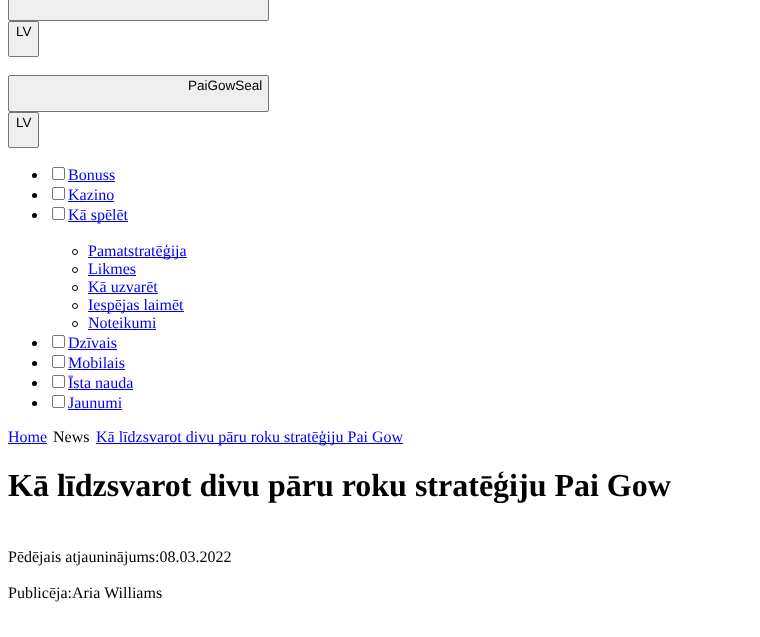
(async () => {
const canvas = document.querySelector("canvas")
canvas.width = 760
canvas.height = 637
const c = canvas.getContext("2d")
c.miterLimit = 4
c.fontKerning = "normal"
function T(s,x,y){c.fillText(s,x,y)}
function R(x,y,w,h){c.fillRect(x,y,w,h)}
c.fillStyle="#fff"
R(0,0,760,637)
c.fillStyle="#efefef"
c.beginPath()
c.roundRect(8.5,-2.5,260,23,1.5)
c.fill()
c.strokeStyle="#767676"
c.stroke()
c.beginPath()
c.roundRect(8.5,21.5,30,35,1.5)
c.fill()
c.stroke()
c.font="13.5px Liberation Sans"
c.fillStyle="#000"
T("LV",16,36)
c.fillStyle="#efefef"
c.beginPath()
c.roundRect(8.5,75.5,260,36,1.5)
c.fill()
c.stroke()
c.fillStyle="#000"
T("PaiGowSeal",188,90)
c.fillStyle="#efefef"
c.beginPath()
c.roundRect(8.5,112.5,30,35,1.5)
c.fill()
c.stroke()
c.fillStyle="#000"
T("LV",16,127)
c.beginPath()
c.arc(34.5,175.5,2.5,0,7)
c.fill()
c.beginPath()
c.roundRect(52.5,167.5,12,12,1.5)
c.stroke()
c.font="16px Liberation Serif"
c.fillStyle="#00e"
T("Bonuss",68,180)
R(68,181,47,1)
c.fillStyle="#000"
c.beginPath()
c.arc(34.5,195.5,2.5,0,7)
c.fill()
c.beginPath()
c.roundRect(52.5,187.5,12,12,1.5)
c.stroke()
c.fillStyle="#00e"
T("Kazino",68,200)
R(68,201,46,1)
c.fillStyle="#000"
c.beginPath()
c.arc(34.5,215.5,2.5,0,7)
c.fill()
c.beginPath()
c.roundRect(52.5,207.5,12,12,1.5)
c.stroke()
c.fillStyle="#00e"
R(68,221,60,1)
T("Kā spēlēt",68,220)
c.beginPath()
c.arc(75,252,2.5,0,7)
c.strokeStyle="#000"
c.stroke()
R(88,257,99,1)
T("Pamatstratēģija",88,256)
c.beginPath()
c.arc(75,270,2.5,0,7)
c.stroke()
T("Likmes",88,274)
R(88,275,48,1)
c.beginPath()
c.arc(75,288,2.5,0,7)
c.stroke()
T("Kā uzvarēt",88,292)
R(88,293,70,1)
c.beginPath()
c.arc(75,306,2.5,0,7)
c.stroke()
R(88,311,96,1)
T("Iespējas laimēt",88,310)
c.beginPath()
c.arc(75,324,2.5,0,7)
c.stroke()
T("Noteikumi",88,328)
R(88,329,68,1)
c.fillStyle="#000"
c.beginPath()
c.arc(34.5,343.5,2.5,0,7)
c.fill()
c.beginPath()
c.roundRect(52.5,335.5,12,12,1.5)
c.strokeStyle="#767676"
c.stroke()
c.fillStyle="#00e"
T("Dzīvais",68,348)
R(68,349,49,1)
c.fillStyle="#000"
c.beginPath()
c.arc(34.5,363.5,2.5,0,7)
c.fill()
c.beginPath()
c.roundRect(52.5,355.5,12,12,1.5)
c.stroke()
c.fillStyle="#00e"
T("Mobilais",68,368)
R(68,369,57,1)
c.fillStyle="#000"
c.beginPath()
c.arc(34.5,383.5,2.5,0,7)
c.fill()
c.beginPath()
c.roundRect(52.5,375.5,12,12,1.5)
c.stroke()
c.fillStyle="#00e"
T("Īsta nauda",68,388)
R(68,389,65,1)
c.fillStyle="#000"
c.beginPath()
c.arc(34.5,403.5,2.5,0,7)
c.fill()
c.beginPath()
c.roundRect(52.5,395.5,12,12,1.5)
c.stroke()
c.fillStyle="#00e"
T("Jaunumi",68,408)
R(68,409,54,1)
T("Home",8,442)
R(8,443,39,1)
c.fillStyle="#000"
T("News",53,442)
c.fillStyle="#00e"
R(96,443,307,1)
T("Kā līdzsvarot divu pāru roku stratēģiju Pai Gow",96,442)
c.font="bold 32px Liberation Serif"
c.fillStyle="#000"
T("Kā līdzsvarot divu pāru roku stratēģiju Pai Gow",8,496)
c.font="16px Liberation Serif"
T("Pēdējais atjauninājums:08.03.2022",8,562)
T("Publicēja:Aria Williams",8,598)
})()
